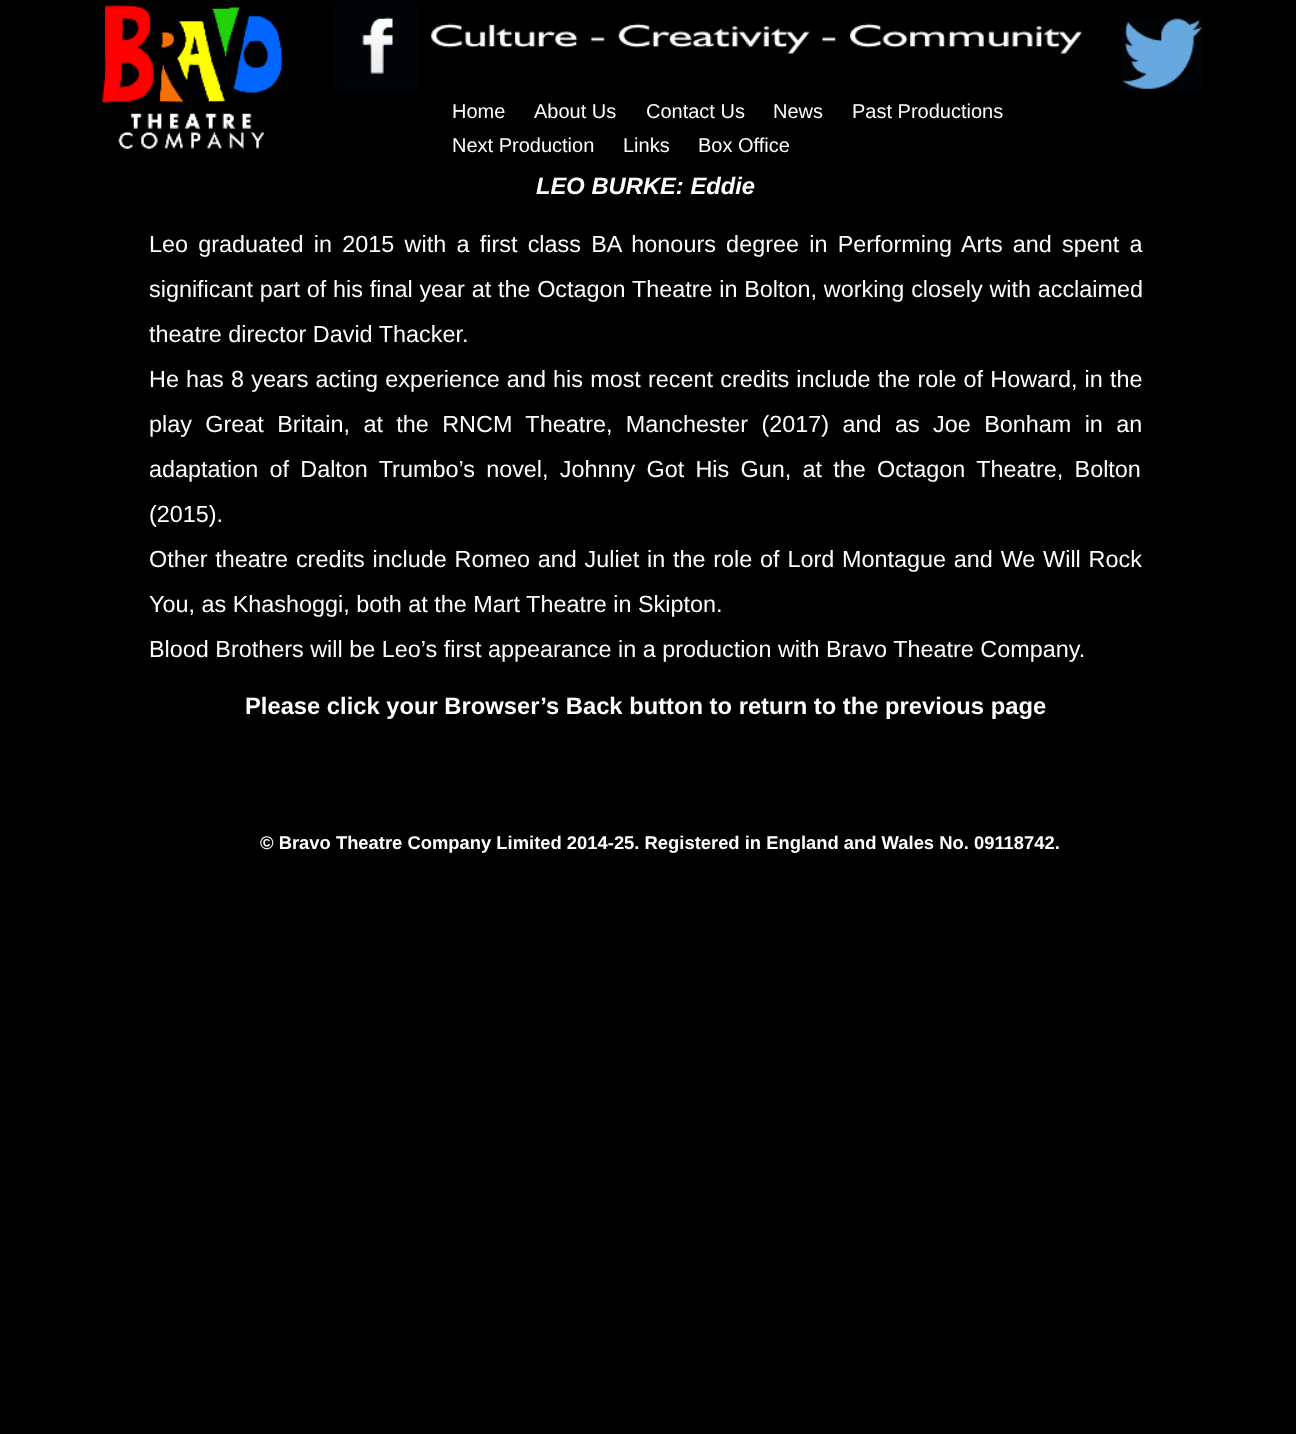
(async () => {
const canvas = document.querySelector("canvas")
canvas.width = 1296
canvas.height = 1434
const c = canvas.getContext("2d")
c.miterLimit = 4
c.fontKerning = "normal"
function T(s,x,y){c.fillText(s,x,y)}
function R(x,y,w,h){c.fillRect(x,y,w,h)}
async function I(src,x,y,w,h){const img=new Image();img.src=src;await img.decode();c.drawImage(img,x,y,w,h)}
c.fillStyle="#000"
R(0,0,1296,1434)
await I("1.png",102,4,181,145)
await I("2.png",334,8,84,83)
await I("3.png",430,23,652,31)
await I("4.png",1121,18,82,72)
c.font="20px Liberation Sans"
c.fillStyle="#fffdfd"
T("Home",452,118)
T("About Us",534,118)
T("Contact Us",646,118)
T("News",773,118)
T("Past Productions",852,118)
T("Next Production",452,152)
T("Links",623,152)
T("Box Office",698,152)
c.font="italic bold 23.75px Liberation Sans"
T("LEO BURKE: Eddie",536,194)
c.wordSpacing="3.75px"
c.font="23.4px Liberation Sans"
T("Leo graduated in 2015 with a first class BA honours degree in Performing Arts and spent a",149,252)
c.wordSpacing="0.25px"
T("significant part of his final year at the Octagon Theatre in Bolton, working closely with acclaimed",149,297)
c.wordSpacing="0px"
T("theatre director David Thacker.",149,342)
c.wordSpacing="0.7px"
T("He has 8 years acting experience and his most recent credits include the role of Howard, in the",149,387)
c.wordSpacing="6.9px"
T("play Great Britain, at the RNCM Theatre, Manchester (2017) and as Joe Bonham in an",149,432)
c.wordSpacing="4.75px"
T("adaptation of Dalton Trumbo’s novel, Johnny Got His Gun, at the Octagon Theatre, Bolton",149,477)
c.wordSpacing="0px"
T("(2015).",149,522)
c.wordSpacing="1.3px"
T("Other theatre credits include Romeo and Juliet in the role of Lord Montague and We Will Rock",149,567)
c.wordSpacing="0px"
T("You, as Khashoggi, both at the Mart Theatre in Skipton.",149,612)
T("Blood Brothers will be Leo’s first appearance in a production with Bravo Theatre Company.",149,657)
c.font="bold 23.75px Liberation Sans"
T("Please click your Browser’s Back button to return to the previous page",245,714)
c.font="bold 18.4px Liberation Sans"
T("© Bravo Theatre Company Limited 2014-25. Registered in England and Wales No. 09118742.",260,849)
})()
